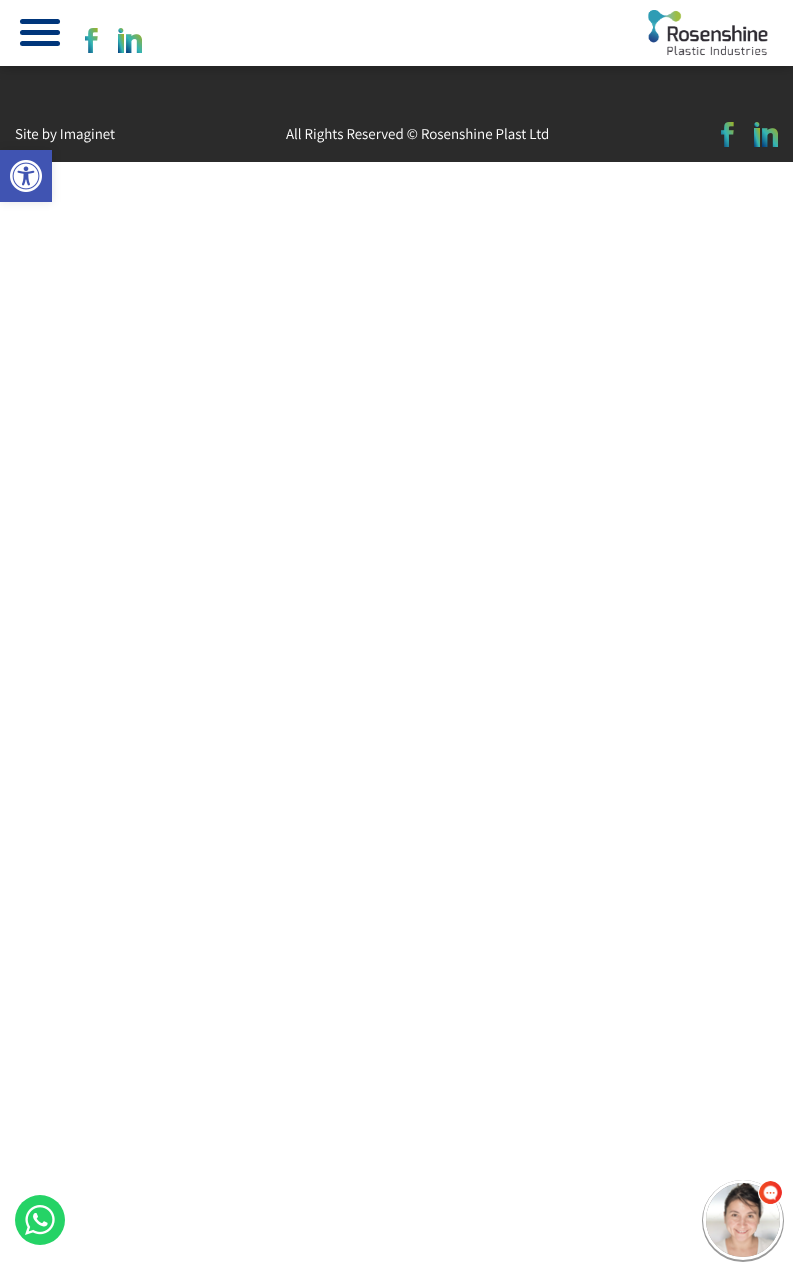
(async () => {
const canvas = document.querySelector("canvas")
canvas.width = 793
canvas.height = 1270
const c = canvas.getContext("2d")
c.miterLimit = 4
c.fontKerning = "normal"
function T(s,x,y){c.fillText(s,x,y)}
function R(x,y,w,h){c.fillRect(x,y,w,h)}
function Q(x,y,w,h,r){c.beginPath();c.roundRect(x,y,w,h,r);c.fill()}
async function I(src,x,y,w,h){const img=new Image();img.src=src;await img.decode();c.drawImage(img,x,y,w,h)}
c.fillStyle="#fff"
R(0,0,793,1270)
c.fillStyle="#2b2b2b"
R(0,66,793,96)
c.fillStyle="#00000080"
c.filter="blur(7.5px)"
c.beginPath()
c.rect(0,-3,793,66)
c.fill()
c.filter="none"
c.fillStyle="#fff"
R(0,0,793,66)
c.fillStyle="#00367b"
Q(20,19,40,5,2.5)
Q(20,30,40,5,2.5)
Q(20,41,40,5,2.5)
await I("1.png",85,28,13,25)
await I("2.png",118,28,24,25)
await I("3.png",648,10,120,46)
c.fillStyle="#25d366"
c.beginPath()
c.arc(40,1220,25,0,7)
c.fill()
await I("4.png",25,1205,30,30)
c.font="15px Assistant"
c.fillStyle="#fff"
T("Site by Imaginet",15,139)
T("All Rights Reserved © Rosenshine Plast Ltd",286,139)
await I("5.png",721,122,13,25)
await I("6.png",754,122,24,25)
c.fillStyle="#0000001a"
c.filter="blur(5px)"
c.beginPath()
c.rect(0,150,52,52)
c.fill()
c.filter="none"
c.fillStyle="#4054b2"
R(0,150,52,52)
await I("7.png",10,160,32,32)
c.fillStyle="#00000066"
c.filter="blur(0.5px)"
c.beginPath()
c.roundRect(702,1180,82,82,41)
c.fill()
c.filter="none"
c.beginPath()
c.arc(743,1220,38.5,0,7)
c.strokeStyle="#fff"
c.lineWidth=3
c.stroke()
await I("8.png",706,1183,74,74)
c.fillStyle="#fff"
c.beginPath()
c.arc(770.5,1192.5,12,0,7)
c.fill()
c.lineWidth=1
c.stroke()
await I("9.png",759,1181,23,23)
})()
